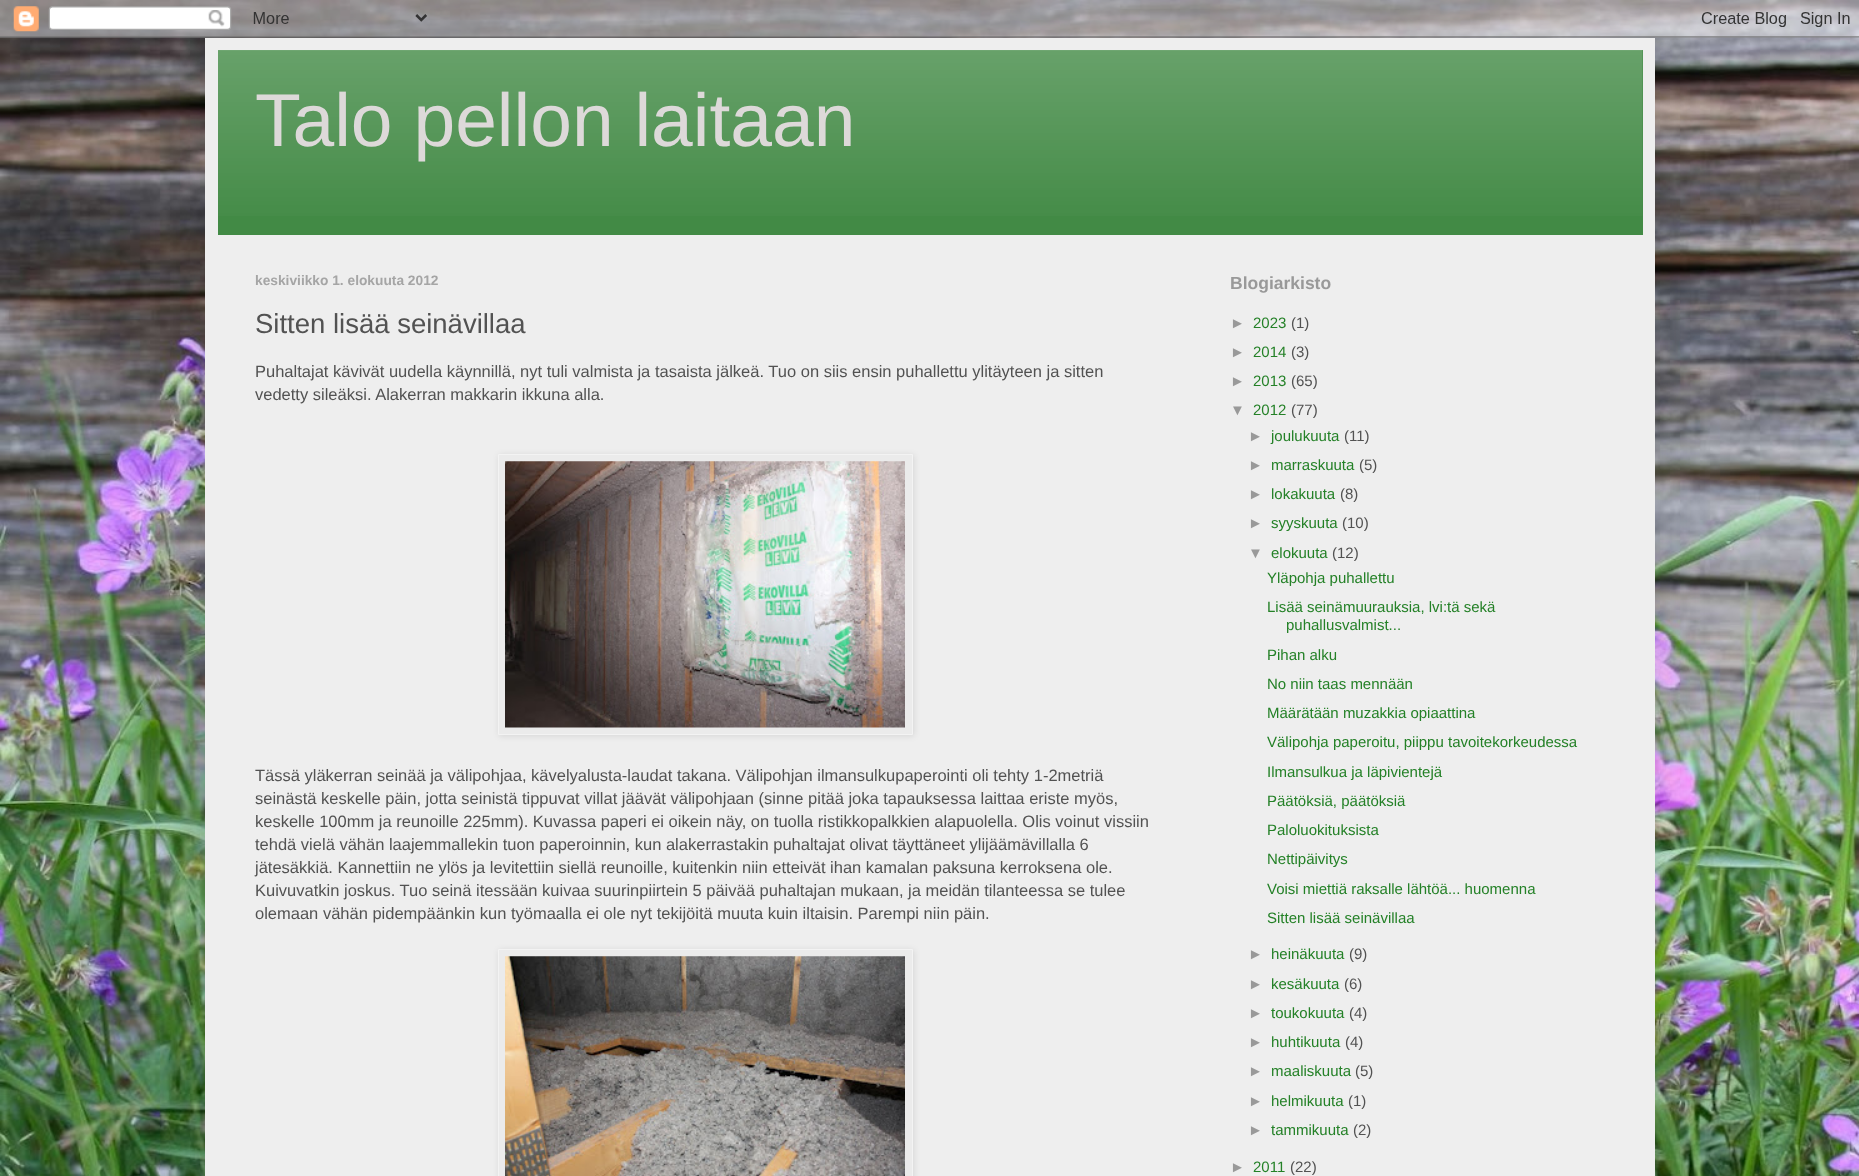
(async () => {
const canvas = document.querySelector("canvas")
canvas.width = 1859
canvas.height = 1176
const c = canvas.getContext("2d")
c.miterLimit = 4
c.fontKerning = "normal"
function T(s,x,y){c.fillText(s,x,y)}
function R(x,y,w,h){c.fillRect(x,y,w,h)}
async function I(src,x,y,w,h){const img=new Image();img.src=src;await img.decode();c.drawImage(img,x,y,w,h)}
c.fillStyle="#fff"
R(0,0,1859,1176)
await I("1.png",0,0,1859,1176)
c.fillStyle="#00000026"
c.filter="blur(25px)"
c.beginPath()
c.rect(205,38,1450,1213)
c.fill()
c.filter="none"
await I("2.png",0,0,1859,38)
c.fillStyle="#eee"
R(205,38,1450,1138)
c.fillStyle="#428a45"
R(218,50,1425,185)
await I("3.png",218,50,1425,166)
c.font="75px Liberation Sans"
c.fillStyle="#ddd9d9"
T("Talo pellon laitaan",255,146)
c.font="bold 13.75px Liberation Sans"
c.fillStyle="#a5a5a5"
T("keskiviikko 1. elokuuta 2012",255,285)
c.font="27.5px Liberation Sans"
c.fillStyle="#525252"
T("Sitten lisää seinävillaa",255,333)
c.font="16.5px Liberation Sans"
T("Puhaltajat kävivät uudella käynnillä, nyt tuli valmista ja tasaista jälkeä. Tuo on siis ensin puhallettu ylitäyteen ja sitten",255,377)
T("vedetty sileäksi. Alakerran makkarin ikkuna alla.",255,400)
c.fillStyle="#0000001a"
c.filter="blur(3px)"
c.beginPath()
c.rect(499,455,415,281)
c.fill()
c.filter="none"
c.fillStyle="#ebebeb"
c.beginPath()
c.rect(498.5,454.5,414,280)
c.fill()
c.strokeStyle="#f3f3f3"
c.stroke()
await I("4.png",505,461,400,267)
c.fillStyle="#525252"
T("Tässä yläkerran seinää ja välipohjaa, kävelyalusta-laudat takana. Välipohjan ilmansulkupaperointi oli tehty 1-2metriä",255,781)
T("seinästä keskelle päin, jotta seinistä tippuvat villat jäävät välipohjaan (sinne pitää joka tapauksessa laittaa eriste myös,",255,804)
T("keskelle 100mm ja reunoille 225mm). Kuvassa paperi ei oikein näy, on tuolla ristikkopalkkien alapuolella. Olis voinut vissiin",255,827)
T("tehdä vielä vähän laajemmallekin tuon paperoinnin, kun alakerrastakin puhaltajat olivat täyttäneet ylijäämävillalla 6",255,850)
T("jätesäkkiä. Kannettiin ne ylös ja levitettiin siellä reunoille, kuitenkin niin etteivät ihan kamalan paksuna kerroksena ole.",255,873)
T("Kuivuvatkin joskus. Tuo seinä itessään kuivaa suurinpiirtein 5 päivää puhaltajan mukaan, ja meidän tilanteessa se tulee",255,896)
T("olemaan vähän pidempäänkin kun työmaalla ei ole nyt tekijöitä muuta kuin iltaisin. Parempi niin päin.",255,919)
c.fillStyle="#0000001a"
c.filter="blur(3px)"
c.beginPath()
c.rect(499,950,415,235)
c.fill()
c.filter="none"
c.fillStyle="#ebebeb"
c.beginPath()
c.rect(498.5,949.5,414,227)
c.fill()
c.stroke()
await I("5.png",505,956,400,220)
c.font="bold 17.5px Liberation Sans"
c.fillStyle="#999"
T("Blogiarkisto",1230,289)
c.font="15px Liberation Sans"
T("►",1230,328)
c.fillStyle="#248127"
T("2023",1253,328)
c.fillStyle="#525252"
T("(1)",1291,328)
c.fillStyle="#999"
T("►",1230,357)
c.fillStyle="#248127"
T("2014",1253,357)
c.fillStyle="#525252"
T("(3)",1291,357)
c.fillStyle="#999"
T("►",1230,386)
c.fillStyle="#248127"
T("2013",1253,386)
c.fillStyle="#525252"
T("(65)",1291,386)
c.fillStyle="#999"
T("▼",1230,415)
c.fillStyle="#248127"
T("2012",1253,415)
c.fillStyle="#525252"
T("(77)",1291,415)
c.fillStyle="#999"
T("►",1248,441)
c.fillStyle="#248127"
T("joulukuuta",1271,441)
c.fillStyle="#525252"
T("(11)",1344,441)
c.fillStyle="#999"
T("►",1248,470)
c.fillStyle="#248127"
T("marraskuuta",1271,470)
c.fillStyle="#525252"
T("(5)",1359,470)
c.fillStyle="#999"
T("►",1248,499)
c.fillStyle="#248127"
T("lokakuuta",1271,499)
c.fillStyle="#525252"
T("(8)",1340,499)
c.fillStyle="#999"
T("►",1248,528)
c.fillStyle="#248127"
T("syyskuuta",1271,528)
c.fillStyle="#525252"
T("(10)",1342,528)
c.fillStyle="#999"
T("▼",1248,558)
c.fillStyle="#248127"
T("elokuuta",1271,558)
c.fillStyle="#525252"
T("(12)",1332,558)
c.fillStyle="#248127"
T("Yläpohja puhallettu",1267,583)
T("Lisää seinämuurauksia, lvi:tä sekä",1267,612)
T("puhallusvalmist...",1286,630)
T("Pihan alku",1267,660)
T("No niin taas mennään",1267,689)
T("Määrätään muzakkia opiaattina",1267,718)
T("Välipohja paperoitu, piippu tavoitekorkeudessa",1267,747)
T("Ilmansulkua ja läpivientejä",1267,777)
T("Päätöksiä, päätöksiä",1267,806)
T("Paloluokituksista",1267,835)
T("Nettipäivitys",1267,864)
T("Voisi miettiä raksalle lähtöä... huomenna",1267,894)
T("Sitten lisää seinävillaa",1267,923)
c.fillStyle="#999"
T("►",1248,959)
c.fillStyle="#248127"
T("heinäkuuta",1271,959)
c.fillStyle="#525252"
T("(9)",1349,959)
c.fillStyle="#999"
T("►",1248,989)
c.fillStyle="#248127"
T("kesäkuuta",1271,989)
c.fillStyle="#525252"
T("(6)",1344,989)
c.fillStyle="#999"
T("►",1248,1018)
c.fillStyle="#248127"
T("toukokuuta",1271,1018)
c.fillStyle="#525252"
T("(4)",1349,1018)
c.fillStyle="#999"
T("►",1248,1047)
c.fillStyle="#248127"
T("huhtikuuta",1271,1047)
c.fillStyle="#525252"
T("(4)",1345,1047)
c.fillStyle="#999"
T("►",1248,1076)
c.fillStyle="#248127"
T("maaliskuuta",1271,1076)
c.fillStyle="#525252"
T("(5)",1355,1076)
c.fillStyle="#999"
T("►",1248,1106)
c.fillStyle="#248127"
T("helmikuuta",1271,1106)
c.fillStyle="#525252"
T("(1)",1348,1106)
c.fillStyle="#999"
T("►",1248,1135)
c.fillStyle="#248127"
T("tammikuuta",1271,1135)
c.fillStyle="#525252"
T("(2)",1353,1135)
c.fillStyle="#999"
T("►",1230,1172)
c.fillStyle="#248127"
T("2011",1253,1172)
c.fillStyle="#525252"
T("(22)",1290,1172)
})()
